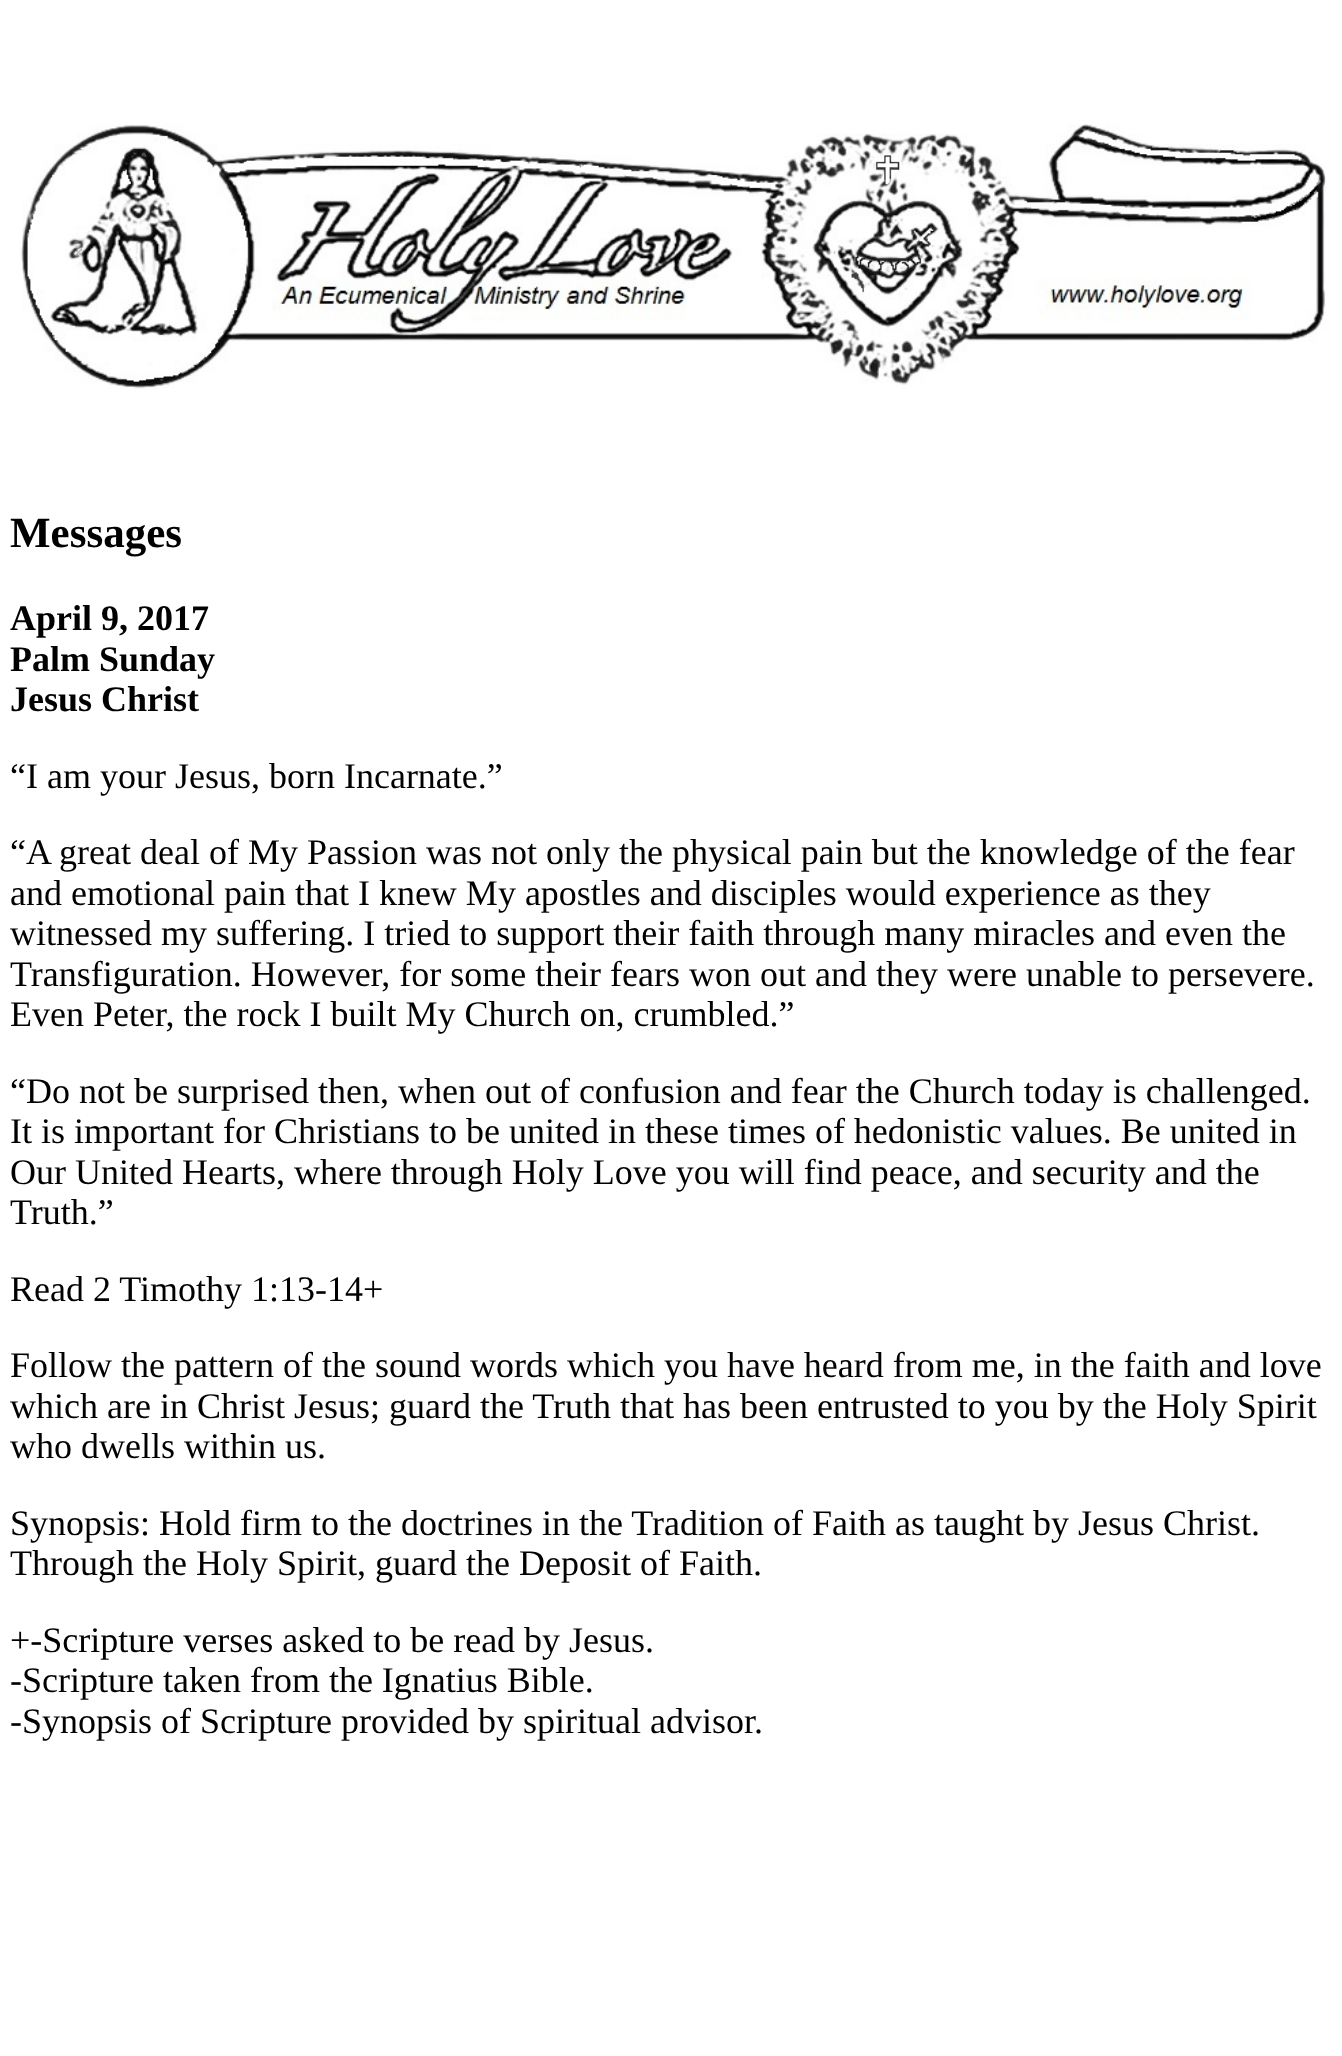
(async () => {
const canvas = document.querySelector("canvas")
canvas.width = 1342
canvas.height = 2056
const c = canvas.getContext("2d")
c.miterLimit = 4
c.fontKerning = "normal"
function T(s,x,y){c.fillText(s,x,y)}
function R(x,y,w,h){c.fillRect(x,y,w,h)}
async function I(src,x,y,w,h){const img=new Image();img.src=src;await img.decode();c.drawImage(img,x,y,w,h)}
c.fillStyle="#fff"
R(0,0,1342,2056)
await I("1.png",20,124,1307,265)
c.font="bold 43px Liberation Serif"
c.fillStyle="#000"
T("Messages",10,547)
c.font="bold 36px Liberation Serif"
T("April 9, 2017",10,630)
T("Palm Sunday",10,671)
T("Jesus Christ",10,711)
c.font="36px Liberation Serif"
T("“I am your Jesus, born Incarnate.”",10,788)
T("“A great deal of My Passion was not only the physical pain but the knowledge of the fear",10,864)
T("and emotional pain that I knew My apostles and disciples would experience as they",10,905)
T("witnessed my suffering. I tried to support their faith through many miracles and even the",10,945)
T("Transfiguration. However, for some their fears won out and they were unable to persevere.",10,986)
T("Even Peter, the rock I built My Church on, crumbled.”",10,1026)
T("“Do not be surprised then, when out of confusion and fear the Church today is challenged.",10,1103)
T("It is important for Christians to be united in these times of hedonistic values. Be united in",10,1143)
T("Our United Hearts, where through Holy Love you will find peace, and security and the",10,1184)
T("Truth.”",10,1224)
T("Read 2 Timothy 1:13-14+",10,1301)
T("Follow the pattern of the sound words which you have heard from me, in the faith and love",10,1377)
T("which are in Christ Jesus; guard the Truth that has been entrusted to you by the Holy Spirit",10,1418)
T("who dwells within us.",10,1458)
T("Synopsis: Hold firm to the doctrines in the Tradition of Faith as taught by Jesus Christ.",10,1535)
T("Through the Holy Spirit, guard the Deposit of Faith.",10,1575)
T("+-Scripture verses asked to be read by Jesus.",10,1652)
T("-Scripture taken from the Ignatius Bible.",10,1692)
T("-Synopsis of Scripture provided by spiritual advisor.",10,1733)
})()
